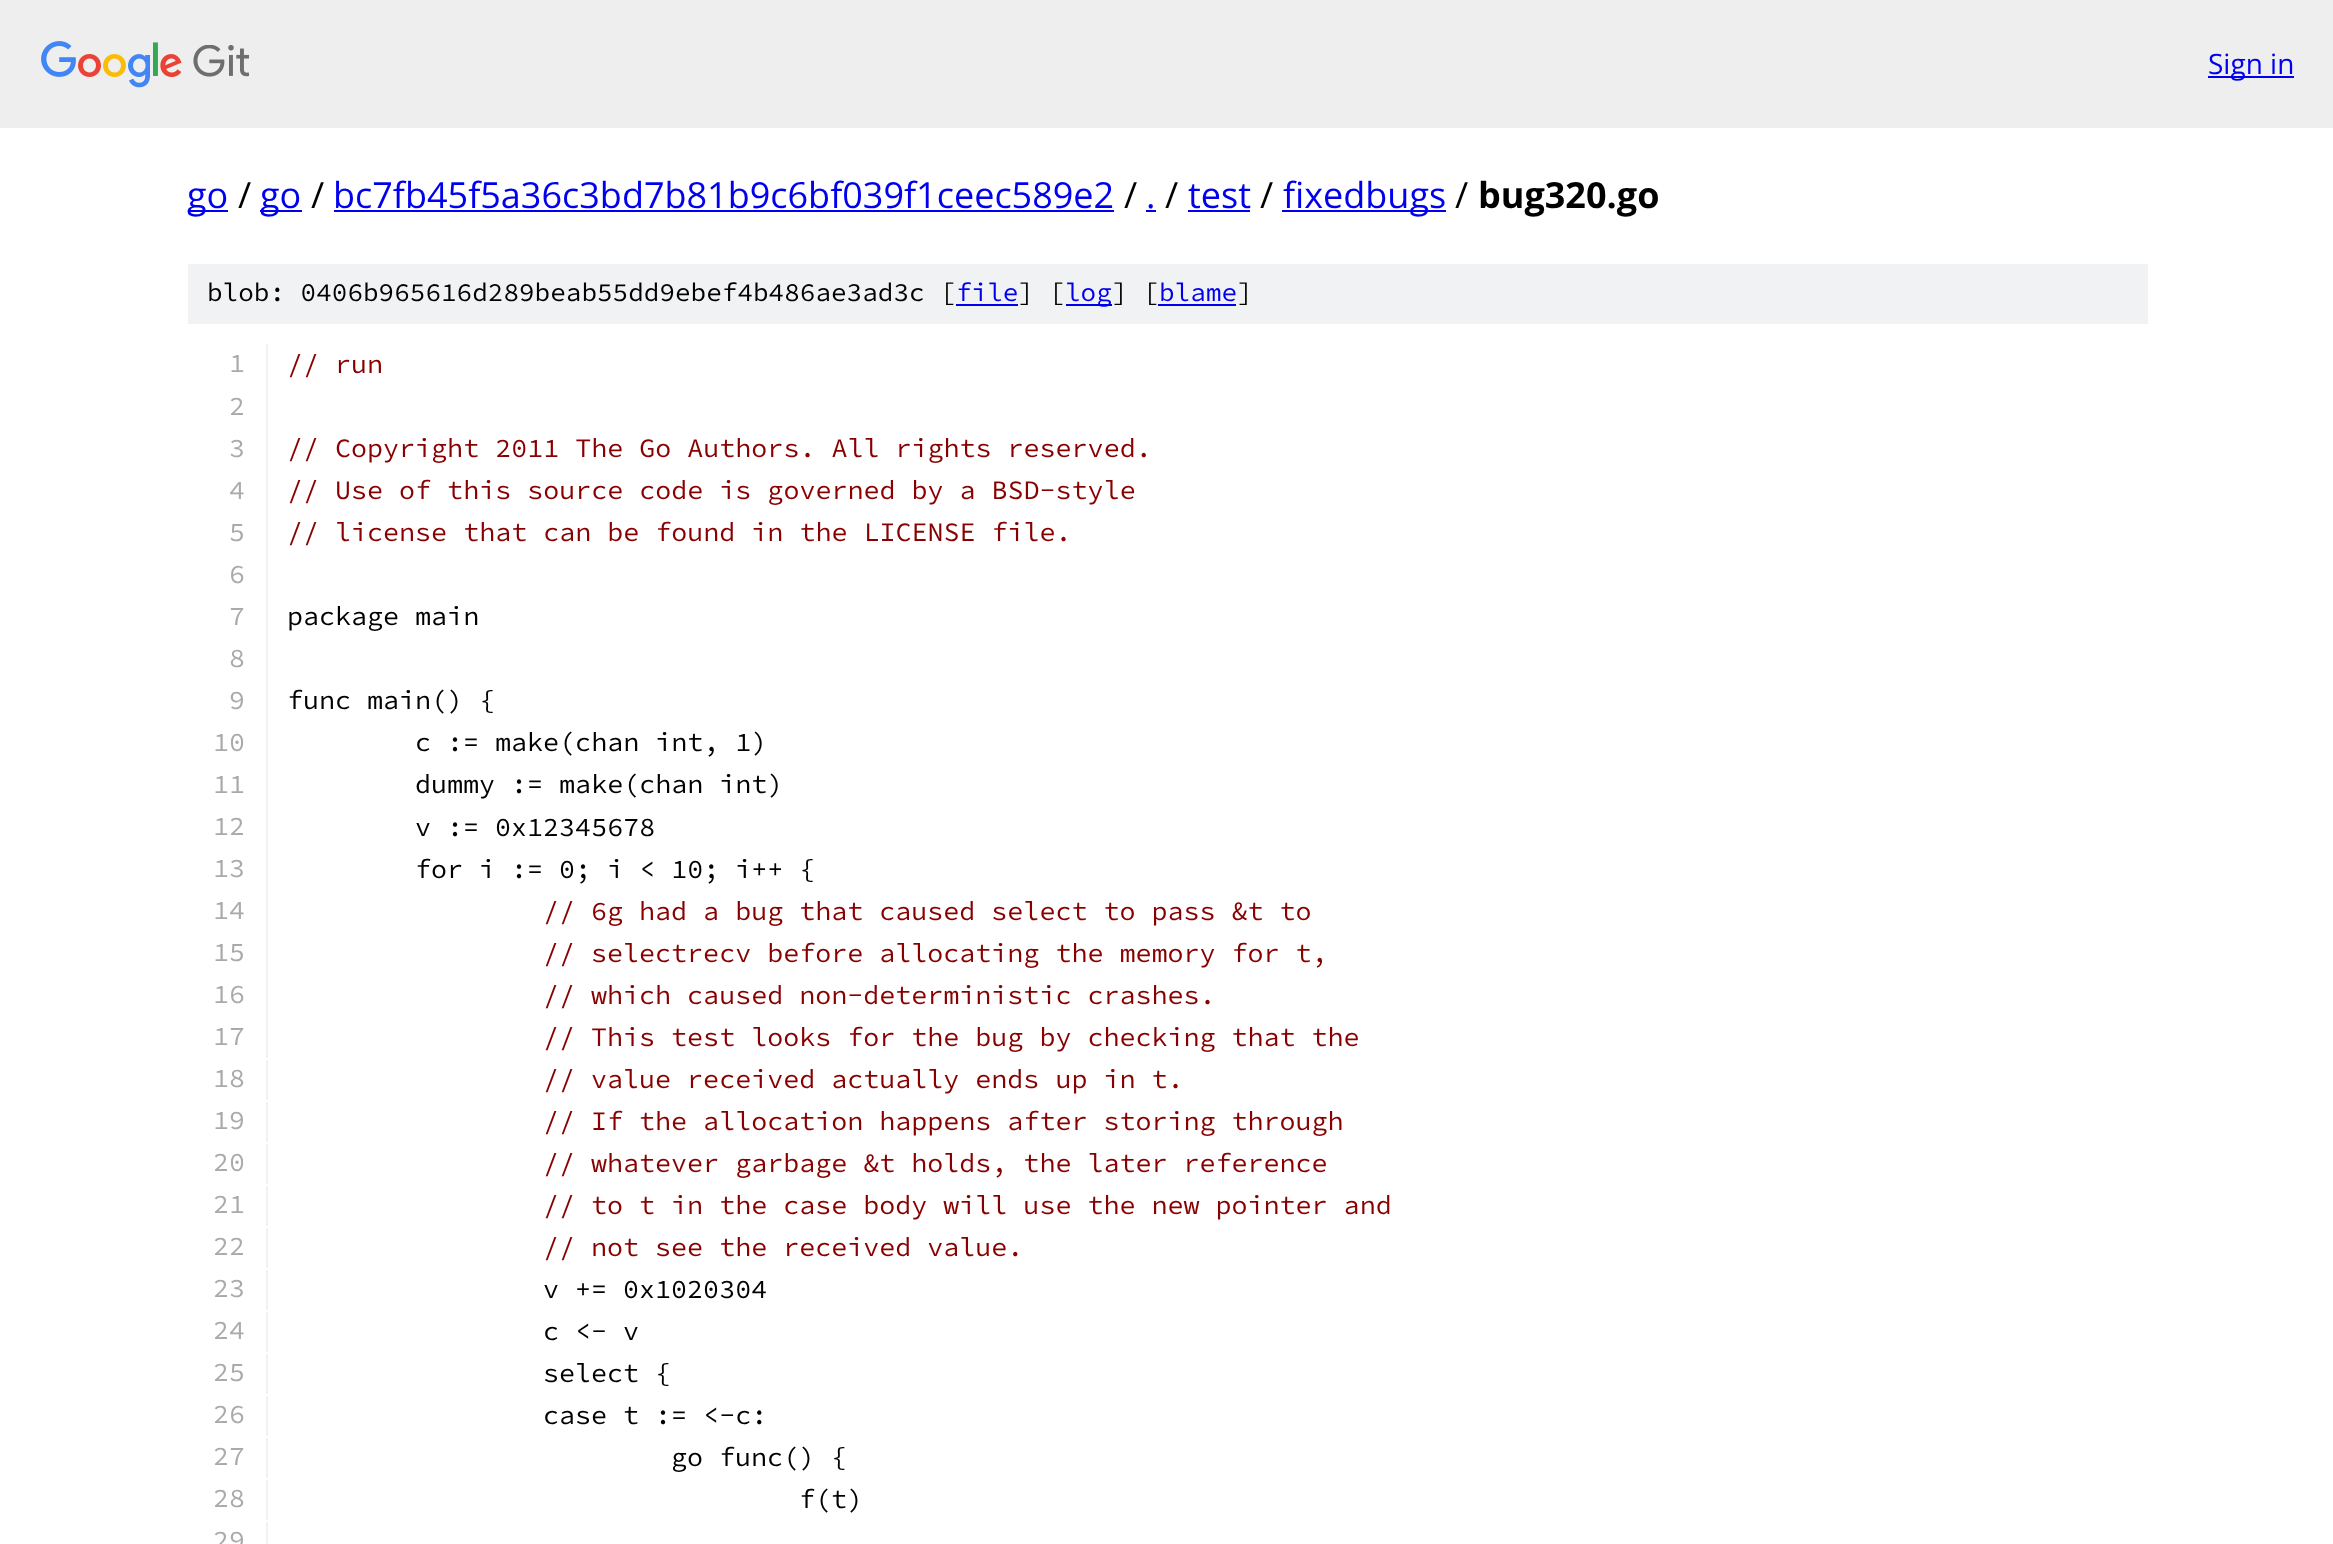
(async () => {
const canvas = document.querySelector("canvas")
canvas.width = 2333
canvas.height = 1544
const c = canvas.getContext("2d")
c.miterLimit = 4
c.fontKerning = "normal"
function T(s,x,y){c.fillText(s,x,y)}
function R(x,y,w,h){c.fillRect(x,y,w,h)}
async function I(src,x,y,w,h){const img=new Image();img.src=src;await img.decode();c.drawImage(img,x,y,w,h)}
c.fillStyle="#fff"
R(0,0,2333,1544)
c.fillStyle="#eee"
R(0,0,2333,128)
await I("1.png",41,41,208,47)
c.fillStyle="#00e"
R(2208,76,86,2)
c.font="28px Open Sans"
T("Sign in",2208,74)
R(188,210,40,2)
c.font="36px Open Sans"
T("go",187,208)
c.fillStyle="#000"
T("/",238,208)
c.fillStyle="#00e"
R(260,210,42,2)
T("go",260,208)
c.fillStyle="#000"
T("/",311,208)
c.fillStyle="#00e"
T("bc7fb45f5a36c3bd7b81b9c6bf039f1ceec589e2",333,208)
R(334,210,780,2)
c.fillStyle="#000"
T("/",1124,208)
c.fillStyle="#00e"
T(".",1146,208)
R(1146,210,10,2)
c.fillStyle="#000"
T("/",1165,208)
c.fillStyle="#00e"
T("test",1188,208)
R(1188,210,62,2)
c.fillStyle="#000"
T("/",1260,208)
c.fillStyle="#00e"
R(1282,210,164,2)
T("fixedbugs",1283,208)
c.fillStyle="#000"
T("/",1455,208)
c.font="bold 36px Open Sans"
T("bug320.go",1478,208)
c.fillStyle="#f1f2f3"
R(188,264,1960,60)
c.font="200 26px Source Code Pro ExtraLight"
c.fillStyle="#000"
T("blob: 0406b965616d289beab55dd9ebef4b486ae3ad3c [",207,301)
c.fillStyle="#00e"
T("file",956,301)
R(956,304,62,2)
c.fillStyle="#000"
T("] [",1018,301)
c.fillStyle="#00e"
R(1066,304,46,2)
T("log",1065,301)
c.fillStyle="#000"
T("] [",1112,301)
c.fillStyle="#00e"
T("blame",1159,301)
R(1158,304,78,2)
c.fillStyle="#000"
T("]",1237,301)
c.fillStyle="#f1f2f3"
R(266,344,2,714)
c.font="200 26.7px Source Code Pro ExtraLight"
c.fillStyle="#aaa"
T("1",229,372)
c.fillStyle="#800"
T("// run",287,373)
c.fillStyle="#aaa"
T("2",229,415)
T("3",229,457)
c.fillStyle="#800"
T("// Copyright 2011 The Go Authors. All rights reserved.",287,457)
c.fillStyle="#aaa"
T("4",229,499)
c.fillStyle="#800"
T("// Use of this source code is governed by a BSD-style",287,499)
c.fillStyle="#aaa"
T("5",229,541)
c.fillStyle="#800"
T("// license that can be found in the LICENSE file.",287,541)
c.fillStyle="#aaa"
T("6",229,583)
T("7",229,625)
c.fillStyle="#000"
T("package main",287,625)
c.fillStyle="#aaa"
T("8",229,667)
T("9",229,709)
c.fillStyle="#000"
T("func main() {",287,709)
c.fillStyle="#aaa"
T("10",213,751)
c.fillStyle="#000"
T("c := make(chan int, 1)",415,751)
c.fillStyle="#aaa"
T("11",213,793)
c.fillStyle="#000"
T("dummy := make(chan int)",415,793)
c.fillStyle="#aaa"
T("12",213,835)
c.fillStyle="#000"
T("v := 0x12345678",415,836)
c.fillStyle="#aaa"
T("13",213,877)
c.fillStyle="#000"
T("for i := 0; i < 10; i++ {",415,878)
c.fillStyle="#aaa"
T("14",213,919)
c.fillStyle="#800"
T("// 6g had a bug that caused select to pass &t to",543,920)
c.fillStyle="#aaa"
T("15",213,961)
c.fillStyle="#800"
T("// selectrecv before allocating the memory for t,",543,962)
c.fillStyle="#aaa"
T("16",213,1003)
c.fillStyle="#800"
T("// which caused non-deterministic crashes.",543,1004)
c.fillStyle="#aaa"
T("17",213,1045)
c.fillStyle="#800"
T("// This test looks for the bug by checking that the",543,1046)
c.fillStyle="#f1f2f3"
R(266,1060,2,40)
c.fillStyle="#aaa"
T("18",213,1087)
c.fillStyle="#800"
T("// value received actually ends up in t.",543,1088)
c.fillStyle="#f1f2f3"
R(266,1102,2,40)
c.fillStyle="#aaa"
T("19",213,1129)
c.fillStyle="#800"
T("// If the allocation happens after storing through",543,1130)
c.fillStyle="#f1f2f3"
R(266,1144,2,40)
c.fillStyle="#aaa"
T("20",213,1171)
c.fillStyle="#800"
T("// whatever garbage &t holds, the later reference",543,1172)
c.fillStyle="#f1f2f3"
R(266,1186,2,40)
c.fillStyle="#aaa"
T("21",213,1213)
c.fillStyle="#800"
T("// to t in the case body will use the new pointer and",543,1214)
c.fillStyle="#f1f2f3"
R(266,1228,2,40)
c.fillStyle="#aaa"
T("22",213,1255)
c.fillStyle="#800"
T("// not see the received value.",543,1256)
c.fillStyle="#f1f2f3"
R(266,1270,2,40)
c.fillStyle="#aaa"
T("23",213,1297)
c.fillStyle="#000"
T("v += 0x1020304",543,1298)
c.fillStyle="#f1f2f3"
R(266,1312,2,40)
c.fillStyle="#aaa"
T("24",213,1339)
c.fillStyle="#000"
T("c <- v",543,1340)
c.fillStyle="#f1f2f3"
R(266,1354,2,40)
c.fillStyle="#aaa"
T("25",213,1381)
c.fillStyle="#000"
T("select {",543,1382)
c.fillStyle="#f1f2f3"
R(266,1396,2,40)
c.fillStyle="#aaa"
T("26",213,1423)
c.fillStyle="#000"
T("case t := <-c:",543,1424)
c.fillStyle="#f1f2f3"
R(266,1438,2,40)
c.fillStyle="#aaa"
T("27",213,1465)
c.fillStyle="#000"
T("go func() {",671,1466)
c.fillStyle="#f1f2f3"
R(266,1480,2,40)
c.fillStyle="#aaa"
T("28",213,1507)
c.fillStyle="#000"
T("f(t)",799,1508)
c.fillStyle="#f1f2f3"
R(266,1522,2,22)
c.fillStyle="#aaa"
T("29",213,1549)
})()
